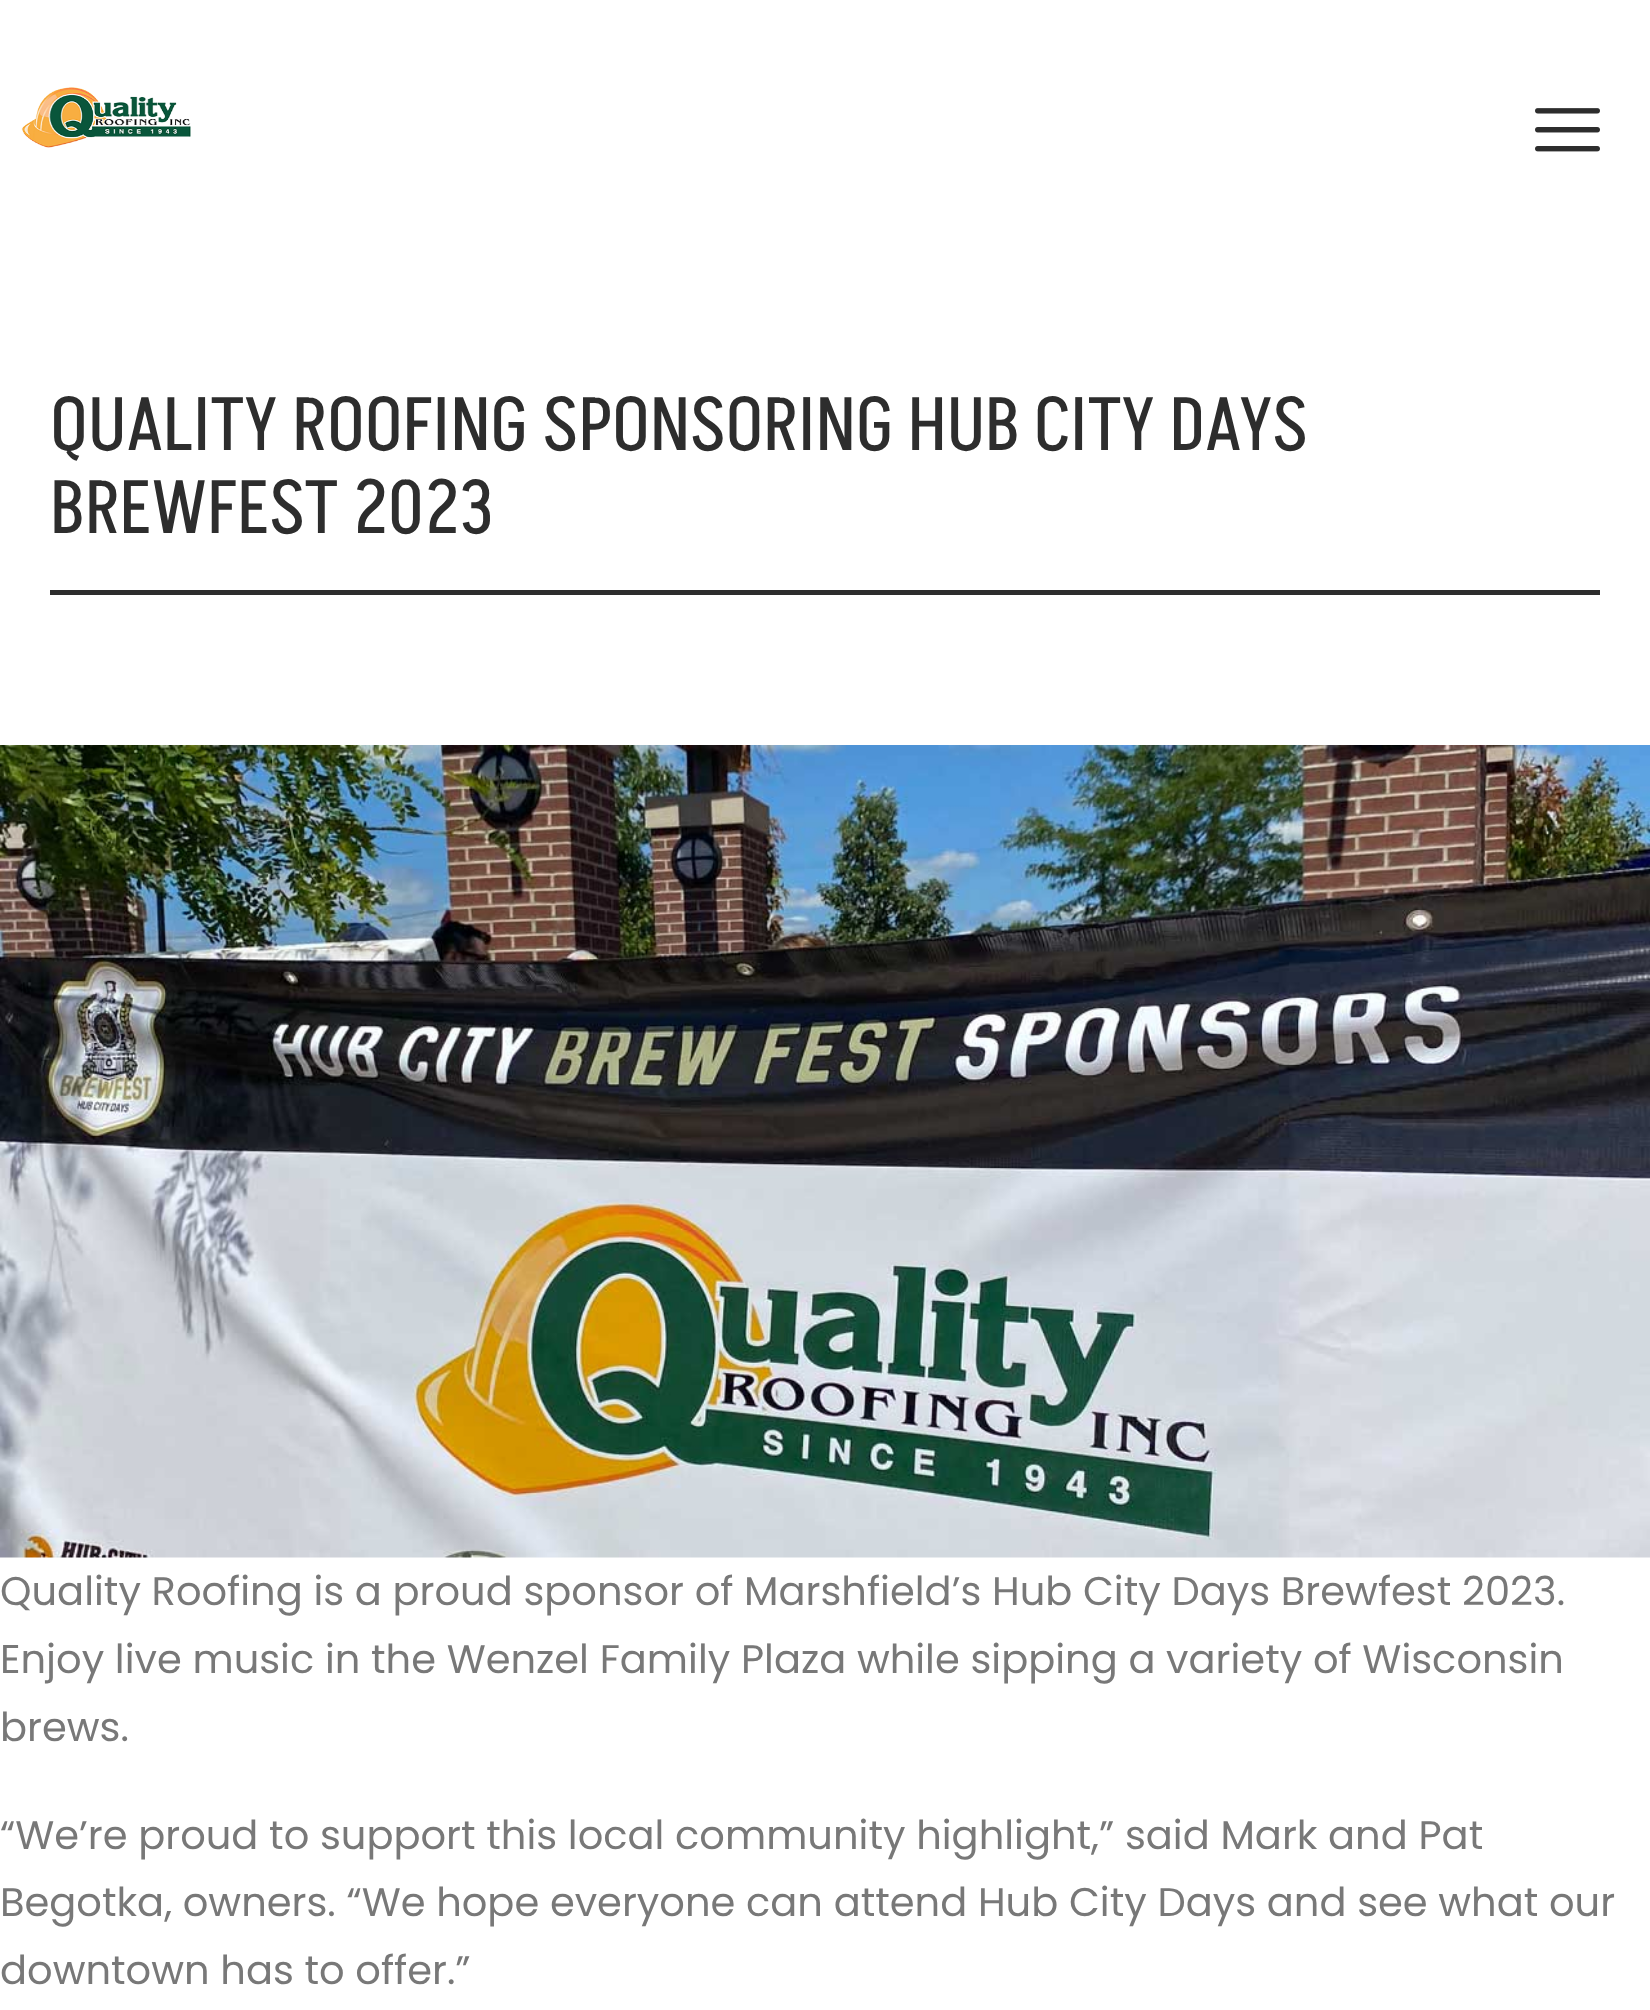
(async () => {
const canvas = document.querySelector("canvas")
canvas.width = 1650
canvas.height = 2010
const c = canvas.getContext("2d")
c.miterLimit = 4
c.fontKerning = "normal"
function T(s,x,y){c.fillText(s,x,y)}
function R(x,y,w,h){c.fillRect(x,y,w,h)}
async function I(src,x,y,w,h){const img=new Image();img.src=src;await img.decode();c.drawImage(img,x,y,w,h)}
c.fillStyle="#fff"
R(0,0,1650,2010)
await I("1.png",21,87,170,61)
await I("2.png",1535,108,65,44)
c.fillStyle="#2d2d2d"
R(50,590,1550,5)
c.font="75px Akshar"
T("QUALITY ROOFING SPONSORING HUB CITY DAYS",50,450)
T("BREWFEST 2023",50,533)
await I("3.png",0,745,1650,813)
c.font="40px Poppins"
c.fillStyle="#787878"
T("Quality Roofing is a proud sponsor of Marshfield’s Hub City Days Brewfest 2023.",0,1605)
T("Enjoy live music in the Wenzel Family Plaza while sipping a variety of Wisconsin",0,1673)
T("brews.",0,1741)
T("“We’re proud to support this local community highlight,” said Mark and Pat",0,1849)
T("Begotka, owners. “We hope everyone can attend Hub City Days and see what our",0,1916)
T("downtown has to offer.”",0,1984)
})()
